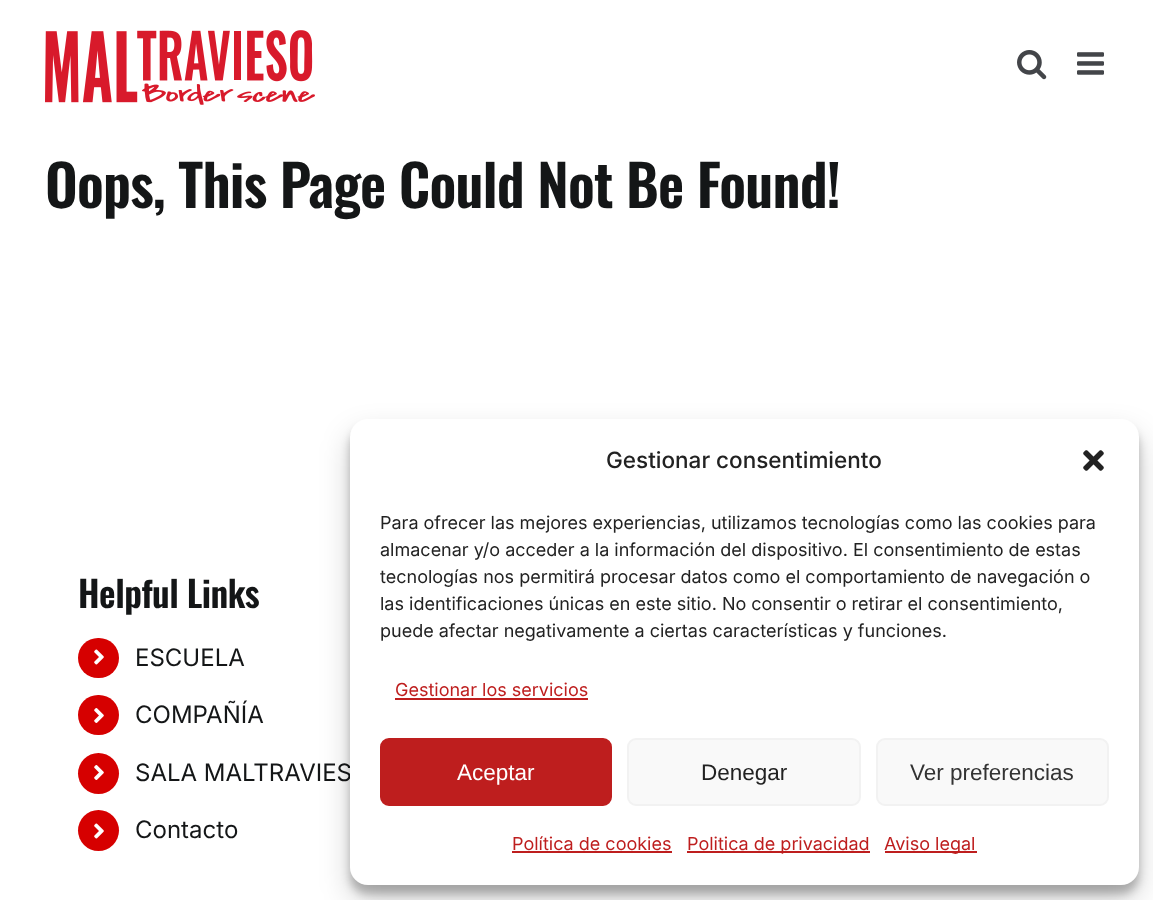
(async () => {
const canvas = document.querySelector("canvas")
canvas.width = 1153
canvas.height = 900
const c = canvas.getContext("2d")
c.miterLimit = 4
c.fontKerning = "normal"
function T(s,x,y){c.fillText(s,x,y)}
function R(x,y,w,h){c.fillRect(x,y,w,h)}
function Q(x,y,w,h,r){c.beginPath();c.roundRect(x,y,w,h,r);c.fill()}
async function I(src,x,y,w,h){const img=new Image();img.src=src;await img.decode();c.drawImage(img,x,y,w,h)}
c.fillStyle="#fff"
R(0,0,1153,900)
await I("1.png",45,30,270,75)
await I("2.png",1017,50,30,30)
await I("3.png",1077,52,27,23)
c.letterSpacing="-0.85px"
c.font="600 57px Oswald"
c.fillStyle="#141617"
T("Oops, This Page Could Not Be Found!",45,208)
c.letterSpacing="-0.5px"
c.font="600 36px Oswald"
T("Helpful Links",78,608)
c.fillStyle="#d60000"
Q(78,638,41,40,20)
await I("4.png",94,649,10,16)
c.letterSpacing="0px"
c.font="24px Inter"
c.fillStyle="#141617"
T("ESCUELA",135,666)
c.fillStyle="#d60000"
Q(78,695,41,40,20)
await I("5.png",94,708,10,15)
c.fillStyle="#141617"
T("COMPAÑÍA",135,723)
c.fillStyle="#d60000"
c.beginPath()
c.arc(98.5,773.5,20.5,0,7)
c.fill()
await I("5.png",94,765,10,15)
c.fillStyle="#141617"
T("SALA MALTRAVIES",135,781)
c.fillStyle="#d60000"
c.beginPath()
c.arc(98.5,830.5,20.5,0,7)
c.fill()
await I("4.png",94,823,10,16)
c.fillStyle="#141617"
T("Contacto",135,838)
c.fillStyle="#0000003b"
c.filter="blur(4.5px)"
c.beginPath()
c.roundRect(350,428,789,466,18)
c.fill()
c.filter="none"
c.fillStyle="#00000030"
c.filter="blur(15px)"
c.beginPath()
c.roundRect(350,434,789,466,18)
c.fill()
c.filter="none"
c.fillStyle="#fff"
Q(350,419,789,466,18)
c.font="500 22.5px Inter"
c.fillStyle="#222"
T("Gestionar consentimiento",606,468)
await I("6.png",1083,450,21,21)
c.font="18px Inter"
T("Para ofrecer las mejores experiencias, utilizamos tecnologías como las cookies para",380,529)
T("almacenar y/o acceder a la información del dispositivo. El consentimiento de estas",380,556)
T("tecnologías nos permitirá procesar datos como el comportamiento de navegación o",380,583)
T("las identificaciones únicas en este sitio. No consentir o retirar el consentimiento,",380,610)
T("puede afectar negativamente a ciertas características y funciones.",380,637)
c.fillStyle="#be1e1e"
T("Gestionar los servicios",395,696)
R(395,698,193,2)
c.beginPath()
c.roundRect(381,739,230,66,8)
c.fill()
c.strokeStyle="#be1e1e"
c.lineWidth=2
c.stroke()
c.font="22.5px Liberation Sans"
c.fillStyle="#fff"
T("Aceptar",457,780)
c.fillStyle="#f9f9f9"
c.beginPath()
c.roundRect(628,739,232,66,8)
c.fill()
c.strokeStyle="#f2f2f2"
c.stroke()
c.fillStyle="#222"
T("Denegar",701,780)
c.fillStyle="#f9f9f9"
c.beginPath()
c.roundRect(877,739,231,66,8)
c.fill()
c.stroke()
c.fillStyle="#333"
T("Ver preferencias",910,780)
c.font="18px Inter"
c.fillStyle="#be1e1e"
T("Política de cookies",512,850)
R(512,851,160,2)
R(687,851,183,2)
T("Politica de privacidad",687,850)
R(885,851,92,2)
T("Aviso legal",884,850)
})()
